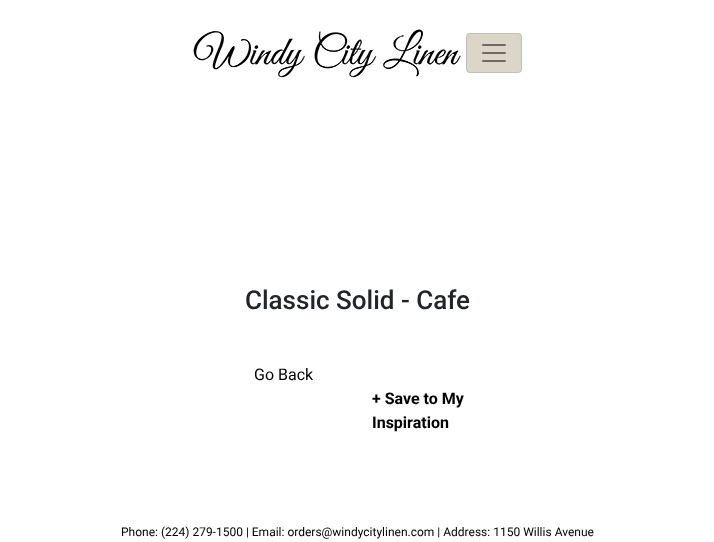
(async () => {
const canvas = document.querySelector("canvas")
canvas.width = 714
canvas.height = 542
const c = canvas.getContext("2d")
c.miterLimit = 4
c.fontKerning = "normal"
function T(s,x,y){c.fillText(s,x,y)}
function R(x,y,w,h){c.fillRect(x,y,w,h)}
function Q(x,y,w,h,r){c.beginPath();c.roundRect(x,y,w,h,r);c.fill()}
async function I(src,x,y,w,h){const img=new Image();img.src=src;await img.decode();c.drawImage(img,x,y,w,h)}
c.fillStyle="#fff"
R(0,0,714,542)
await I("1.png",193,29,268,49)
c.fillStyle="#dbd6c8"
Q(466,33,56,40,4)
c.beginPath()
c.roundRect(466.5,33.5,55,39,3.5)
c.strokeStyle="#0000001a"
c.stroke()
await I("2.png",482,44,24,18)
c.font="500 26px Roboto"
c.fillStyle="#212529"
T("Classic Solid - Cafe",245,309)
c.font="16px Roboto"
c.fillStyle="#000"
T("Go Back",254,380)
c.font="bold 16px Roboto"
T("+ Save to My",372,404)
T("Inspiration",372,428)
c.font="12px Roboto"
T("Phone: (224) 279-1500 | Email: orders@windycitylinen.com | Address: 1150 Willis Avenue",121,536)
})()
